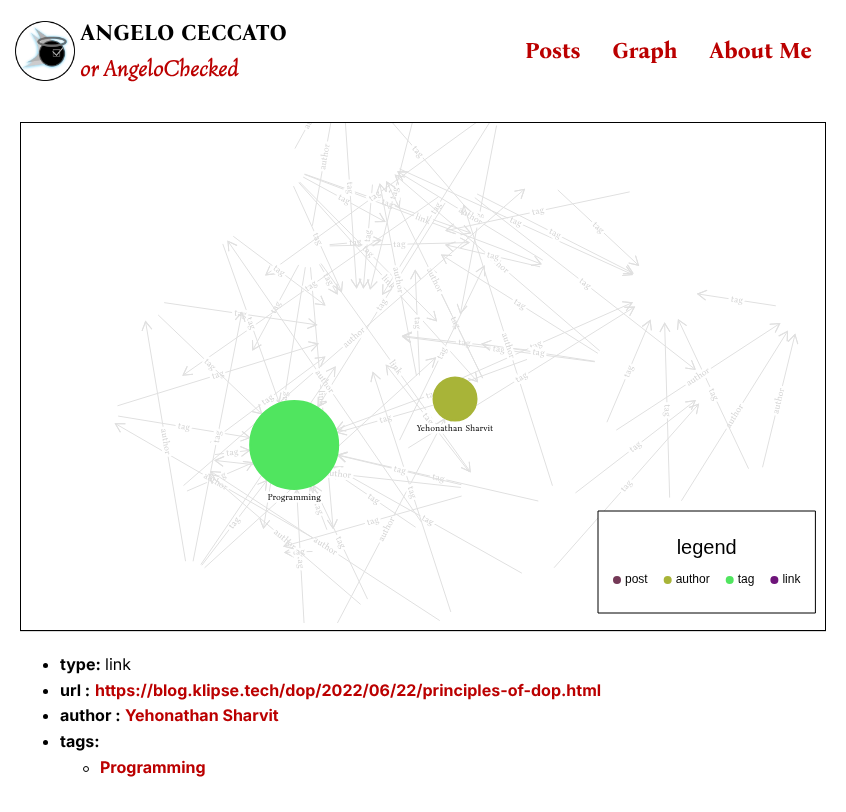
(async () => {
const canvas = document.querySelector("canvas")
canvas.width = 846
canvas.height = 812
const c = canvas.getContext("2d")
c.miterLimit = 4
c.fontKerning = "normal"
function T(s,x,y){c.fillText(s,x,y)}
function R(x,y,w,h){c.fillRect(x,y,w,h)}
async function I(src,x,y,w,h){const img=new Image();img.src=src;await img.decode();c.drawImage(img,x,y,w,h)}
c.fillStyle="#fff"
R(0,0,846,812)
await I("1.png",15,21,60,60)
c.font="bold 22.5px Bona Nova"
c.fillStyle="#000"
T("ANGELO CECCATO",80,40)
c.font="italic bold 22.5px Bona Nova"
c.fillStyle="#b00"
T("or AngeloChecked",80,76)
c.font="bold 22.5px Bona Nova"
T("Posts",525,58)
T("Graph",612,58)
T("About Me",709,58)
c.strokeStyle="#000"
c.strokeRect(20.5,122.5,805,508)
await I("2.png",114,123,685,500)
await I("3.png",597,510,219,104)
c.fillStyle="#dadada"
R(20,631,806,1)
c.fillStyle="#000"
c.beginPath()
c.arc(45.5,665.5,2.5,0,7)
c.fill()
c.font="bold 16px Inter"
T("type:",60,670)
c.font="16px Inter"
T("link",105,670)
c.beginPath()
c.arc(45.5,691.5,2.5,0,7)
c.fill()
c.font="bold 16px Inter"
T("url :",60,696)
c.fillStyle="#b00"
T("https://blog.klipse.tech/dop/2022/06/22/principles-of-dop.html",95,696)
c.fillStyle="#000"
c.beginPath()
c.arc(45.5,716.5,2.5,0,7)
c.fill()
T("author :",60,721)
c.fillStyle="#b00"
T("Yehonathan Sharvit",125,721)
c.fillStyle="#000"
c.beginPath()
c.arc(45.5,742.5,2.5,0,7)
c.fill()
T("tags:",60,747)
c.beginPath()
c.arc(86,769,2.5,0,7)
c.stroke()
c.fillStyle="#b00"
T("Programming",100,773)
})()
